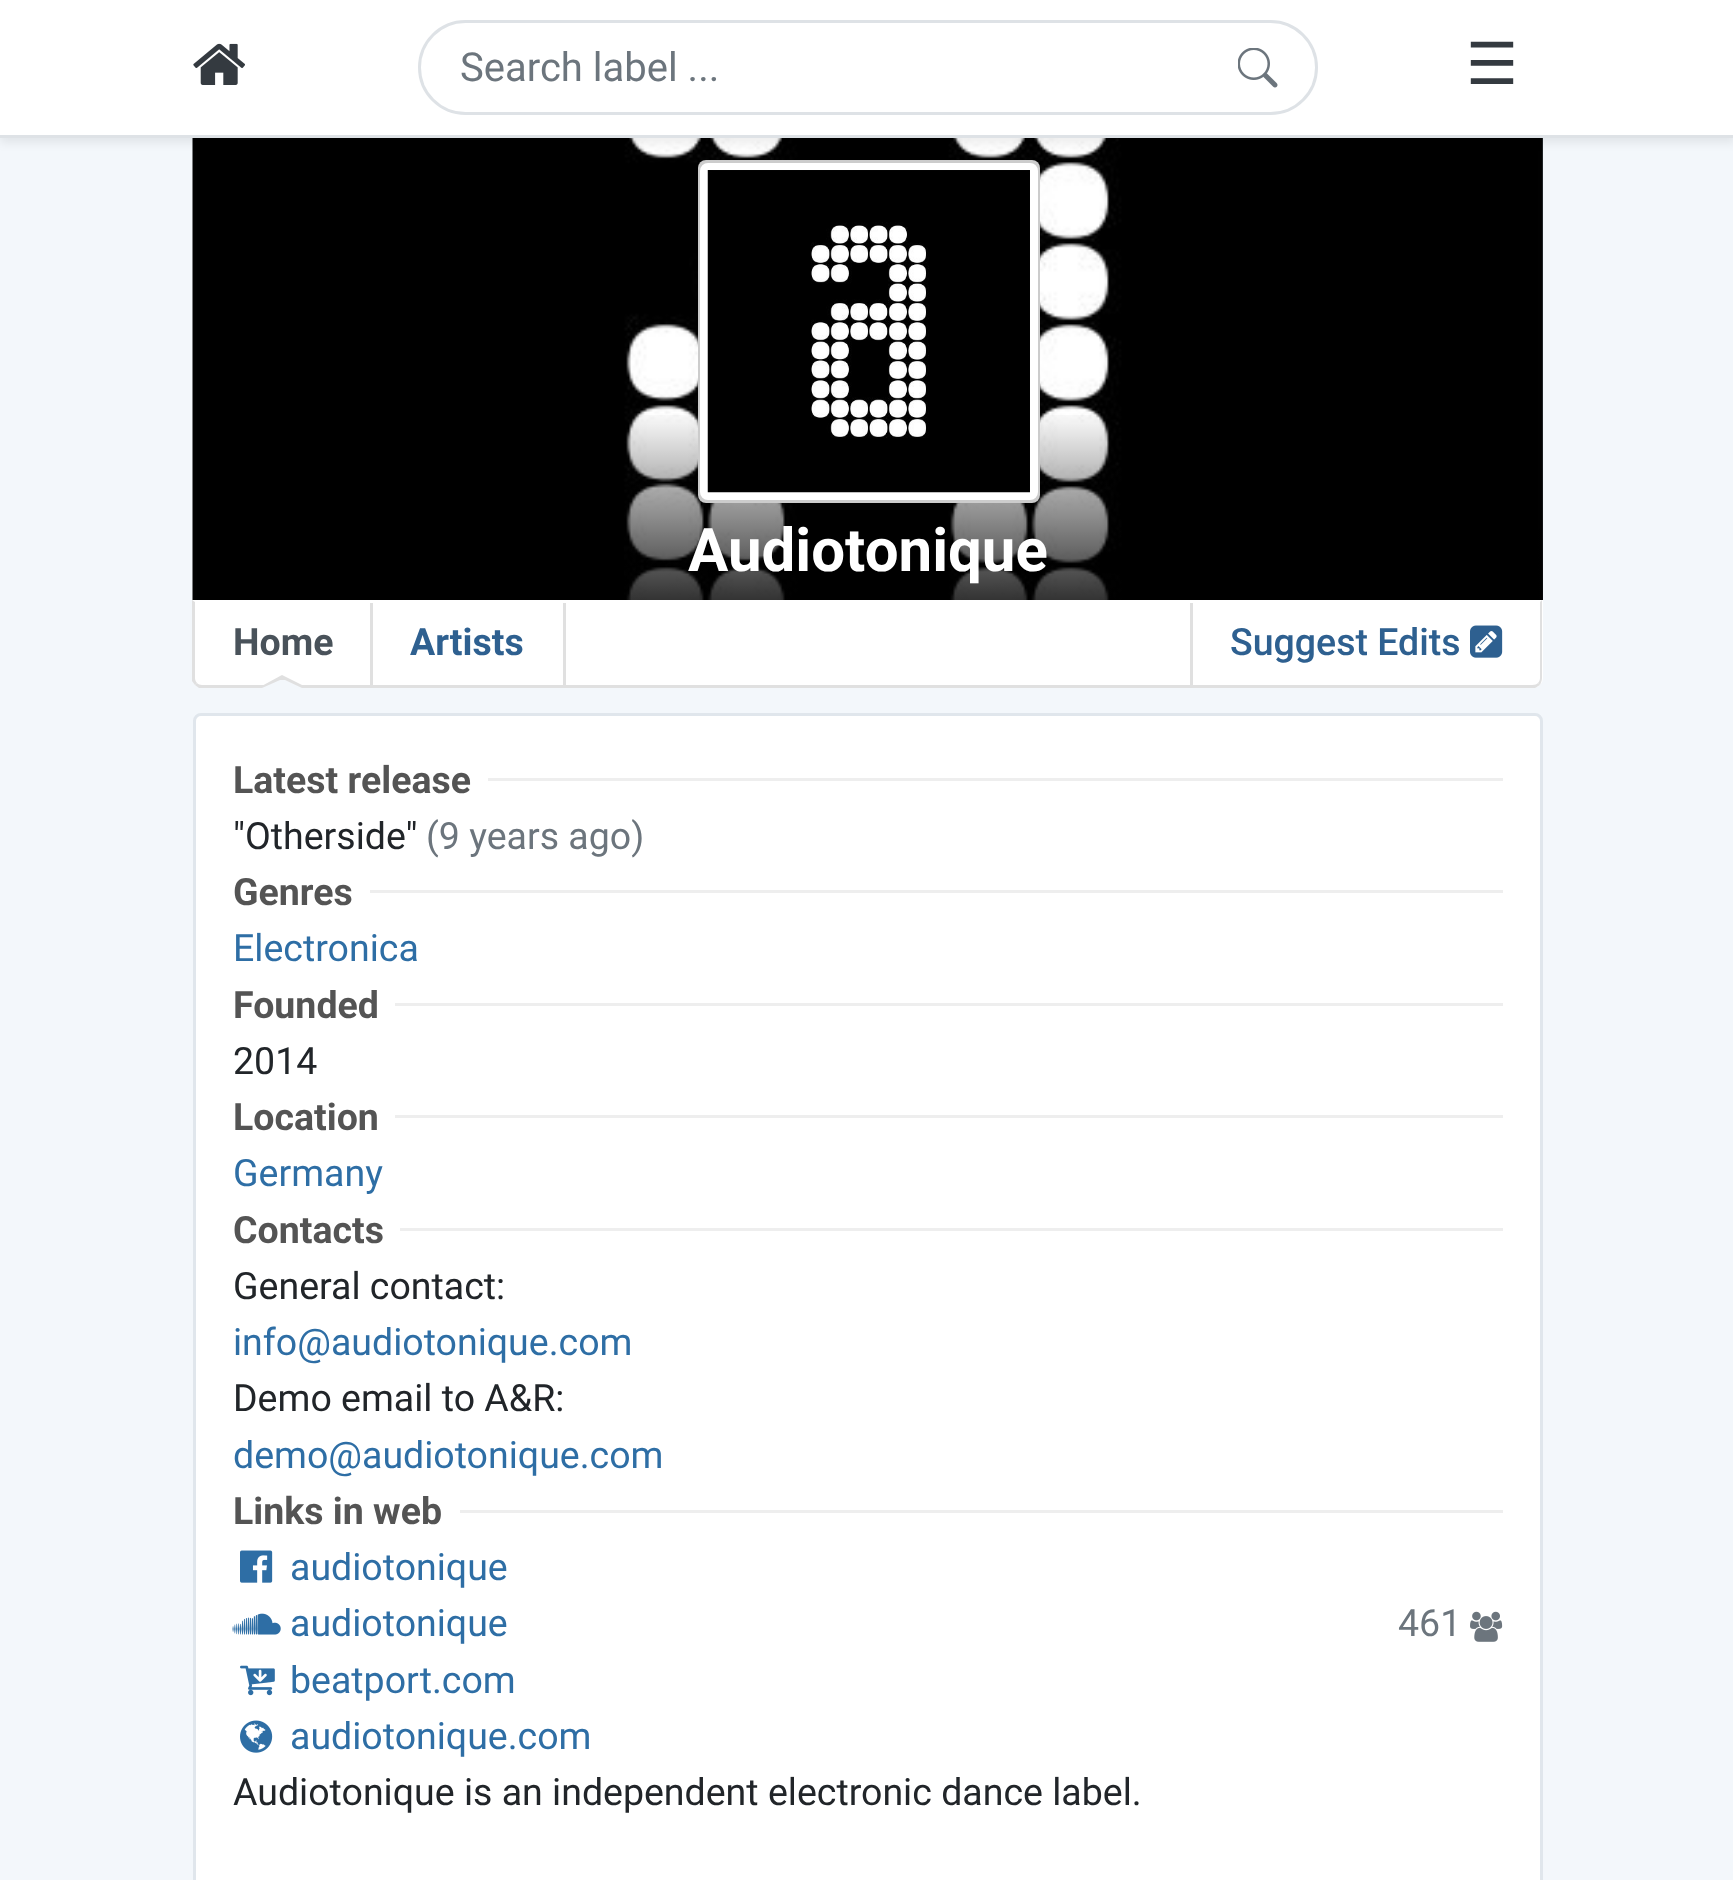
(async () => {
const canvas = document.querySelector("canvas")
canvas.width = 1733
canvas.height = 1880
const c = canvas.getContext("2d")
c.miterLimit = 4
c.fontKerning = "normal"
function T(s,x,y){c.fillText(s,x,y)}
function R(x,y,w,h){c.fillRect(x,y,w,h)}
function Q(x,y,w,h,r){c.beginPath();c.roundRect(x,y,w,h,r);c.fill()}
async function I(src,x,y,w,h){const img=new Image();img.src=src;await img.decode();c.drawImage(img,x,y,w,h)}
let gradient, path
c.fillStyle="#f3f7fb"
R(0,0,1733,1880)
c.fillStyle="#3d444a"
R(1542,138,1,462)
await I("3.png",192,138,1351,462)
c.fillStyle="#00000012"
c.filter="blur(5px)"
c.beginPath()
c.rect(0,5,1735,138)
c.fill()
c.filter="none"
c.fillStyle="#fff"
R(0,0,1733,135)
c.fillStyle="#dee2e6"
R(0,135,1733,3)
await I("1.png",193,43,52,42)
c.beginPath()
c.roundRect(419.5,21.5,897,92,46)
c.strokeStyle="#dee2e6"
c.lineWidth=3
c.stroke()
c.font="40px Roboto"
c.fillStyle="#6c757d"
T("Search label ...",460,81)
await I("2.png",1238,48,40,40)
c.font="58px DejaVu Sans"
c.fillStyle="#343a40"
T("☰",1466,84)
gradient = c.createLinearGradient(868,125,868,600)
gradient.addColorStop(.6,"#00000000")
gradient.addColorStop(1,"#000000cc")
c.fillStyle = gradient
R(625,415,918,185)
c.fillStyle="#ccc"
Q(698,160,342,343,8)
c.beginPath()
c.roundRect(704,167,330,329,4)
c.strokeStyle="#fff"
c.lineWidth=8
c.stroke()
await I("4.png",707,170,323,323)
c.font="bold 60px Roboto"
c.fillStyle="#fff"
T("Audiotonique",688,571)
c.beginPath()
c.roundRect(193,600,1350,88,[0,0,10,10])
c.fill()
c.fillStyle="#e0e0e0"
path = new Path2D("M1542 600v78c0 2-1 5-2 7l-2-2c1-1 2-3 2-5v-76z")
c.fill(path)
path = new Path2D("M199 688l-4-3l2-2c1 1 3 2 5 2h1330c3 0 5-1 6-2l2 2c-2 1-3 2-5 3z")
c.fill(path)
path = new Path2D("M195 685l-3-4v-81l3 2v76c0 2 1 4 2 5z")
c.fill(path)
R(370,603,3,85)
c.font="bold 37.5px Roboto"
c.fillStyle="#49525a"
T("Home",233,655)
c.fillStyle="#e0e0e0"
path = new Path2D("M308 688h-50l24-13z")
c.fill(path)
c.fillStyle="#f3f7fb"
path = new Path2D("M302 688h-40l18-8h5z")
c.fill(path)
c.fillStyle="#e0e0e0"
R(563,603,3,85)
c.fillStyle="#2e6090"
T("Artists",410,655)
c.fillStyle="#e0e0e0"
R(1190,603,3,85)
c.font="500 37.5px Roboto"
c.fillStyle="#2e6090"
T("Suggest Edits",1230,655)
await I("5.png",1470,625,33,33)
c.fillStyle="#fff"
c.beginPath()
c.roundRect(194.5,714.5,1347,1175,6.5)
c.fill()
c.strokeStyle="#e0e6ec"
c.lineWidth=3
c.stroke()
c.fillStyle="#eee"
R(488,778,1015,3)
c.font="bold 37.5px Roboto"
c.fillStyle="#545454"
T("Latest release",233,793)
c.font="37.5px Roboto"
c.fillStyle="#212529"
T("\"Otherside\"",233,849)
c.fillStyle="#6c757d"
T("(9 years ago)",426,849)
c.fillStyle="#eee"
R(370,890,1133,3)
c.font="bold 37.5px Roboto"
c.fillStyle="#545454"
T("Genres",233,905)
c.font="37.5px Roboto"
c.fillStyle="#2e6ea5"
T("Electronica",233,961)
c.fillStyle="#eee"
R(395,1003,1108,3)
c.font="bold 37.5px Roboto"
c.fillStyle="#545454"
T("Founded",233,1018)
c.font="37.5px Roboto"
c.fillStyle="#212529"
T("2014",233,1074)
c.fillStyle="#eee"
R(395,1115,1108,3)
c.font="bold 37.5px Roboto"
c.fillStyle="#545454"
T("Location",233,1130)
c.font="37.5px Roboto"
c.fillStyle="#2e6ea5"
T("Germany",233,1186)
c.fillStyle="#eee"
R(400,1228,1103,3)
c.font="bold 37.5px Roboto"
c.fillStyle="#545454"
T("Contacts",233,1243)
c.font="37.5px Roboto"
c.fillStyle="#212529"
T("General contact:",233,1299)
c.fillStyle="#2e6ea5"
T("info@audiotonique.com",233,1355)
c.fillStyle="#212529"
T("Demo email to A&R:",233,1411)
c.fillStyle="#2e6ea5"
T("demo@audiotonique.com",233,1468)
c.fillStyle="#eee"
R(460,1510,1043,3)
c.font="bold 37.5px Roboto"
c.fillStyle="#545454"
T("Links in web",233,1524)
await I("6.png",240,1550,33,33)
c.font="37.5px Roboto"
c.fillStyle="#2e6ea5"
T("audiotonique",290,1580)
await I("7.png",232,1613,49,22)
T("audiotonique",290,1636)
c.fillStyle="#6c757d"
T("461",1398,1636)
await I("8.png",1470,1611,33,31)
await I("9.png",240,1665,35,31)
c.fillStyle="#2e6ea5"
T("beatport.com",290,1693)
await I("10.png",240,1720,33,33)
T("audiotonique.com",290,1749)
c.fillStyle="#212529"
T("Audiotonique is an independent electronic dance label.",233,1805)
})()
